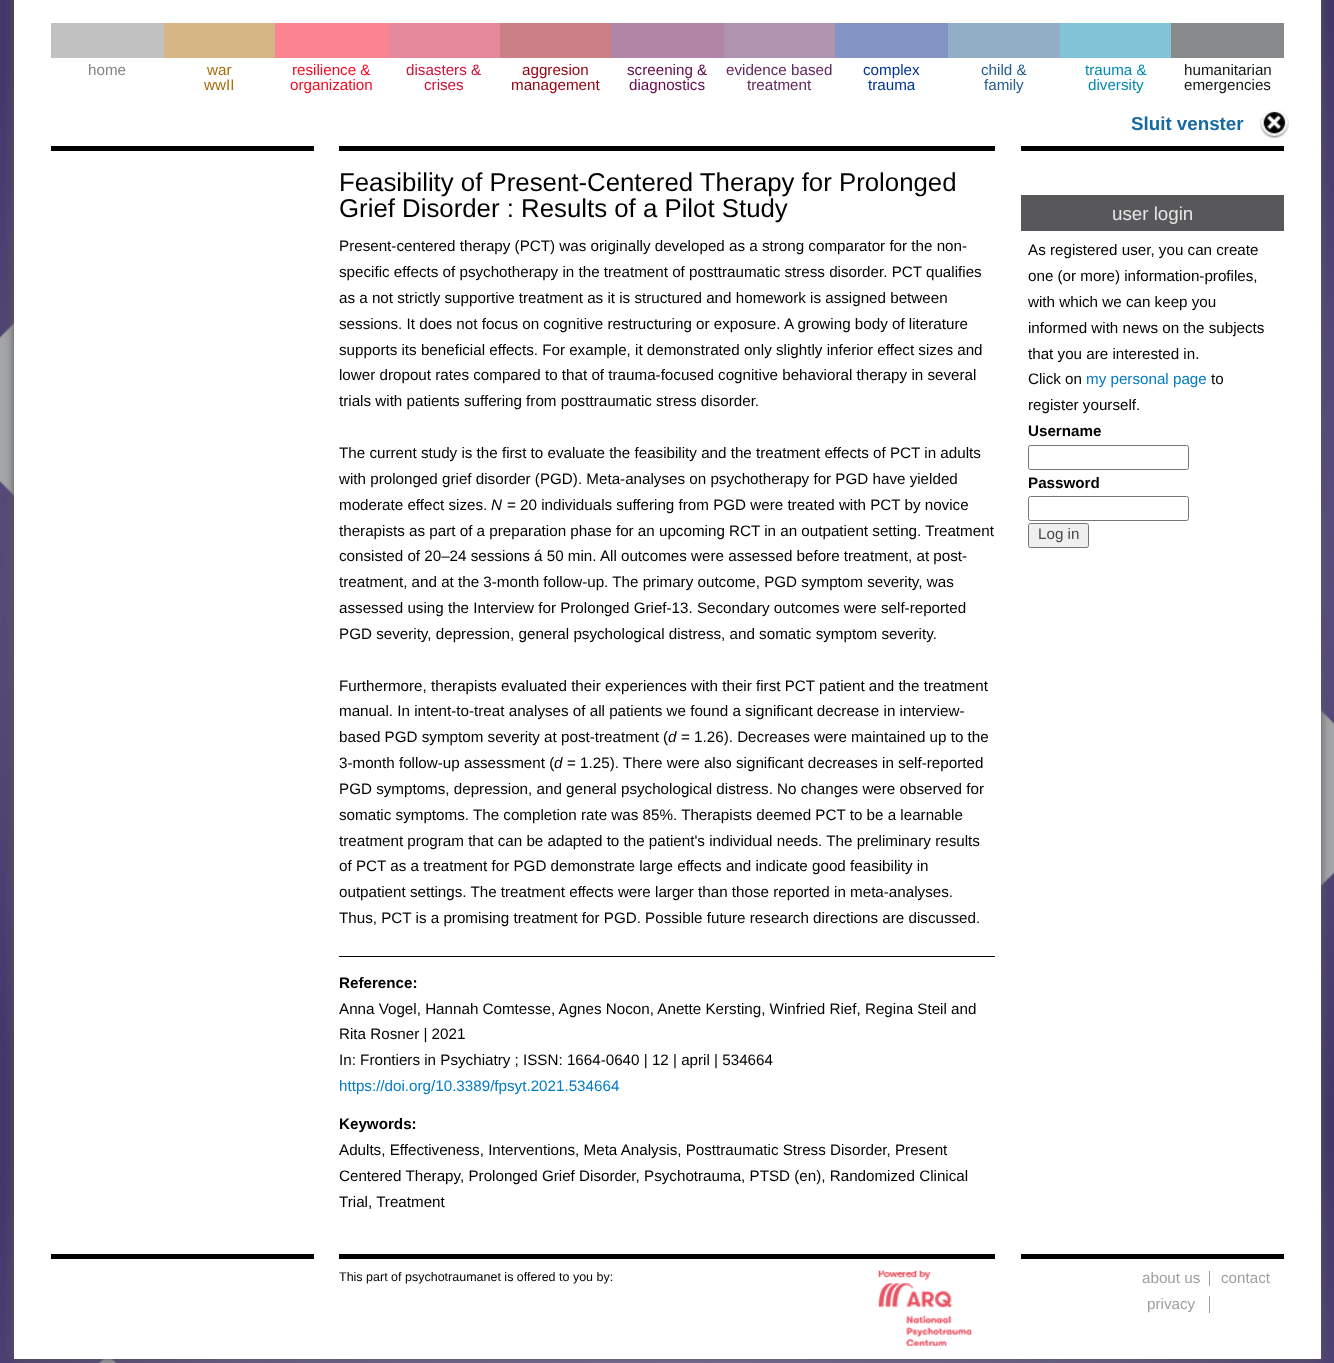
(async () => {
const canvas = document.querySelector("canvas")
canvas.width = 1334
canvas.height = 1363
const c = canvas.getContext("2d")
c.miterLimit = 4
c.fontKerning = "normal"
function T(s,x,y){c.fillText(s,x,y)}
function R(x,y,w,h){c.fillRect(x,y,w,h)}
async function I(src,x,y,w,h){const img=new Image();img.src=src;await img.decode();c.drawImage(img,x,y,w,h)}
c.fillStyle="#fff"
R(0,0,1334,1363)
await I("1.png",0,0,1334,1363)
c.fillStyle="#58585a"
c.filter="blur(5px)"
c.beginPath()
c.rect(14,-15,1307,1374)
c.fill()
c.filter="none"
c.fillStyle="#fff"
R(14,0,1307,1359)
c.fillStyle="#c1c1c1"
R(51,23,113,35)
c.font="15.2px Liberation Sans"
c.fillStyle="#848484"
T("home",88,75)
c.fillStyle="#d4b785"
R(164,23,111,35)
c.fillStyle="#a96f0b"
T("war",207,75)
T("wwII",204,90)
c.fillStyle="#fa8590"
R(275,23,113,35)
c.fillStyle="#f60b22"
T("resilience &",292,75)
T("organization",290,90)
c.fillStyle="#e6889b"
R(388,23,112,35)
c.fillStyle="#ce1238"
T("disasters &",406,75)
T("crises",424,90)
c.fillStyle="#ca8086"
R(500,23,111,35)
c.fillStyle="#95010e"
T("aggresion",522,75)
T("management",511,90)
c.fillStyle="#b085a5"
R(611,23,113,35)
c.fillStyle="#610b4b"
T("screening &",627,75)
T("diagnostics",629,90)
c.fillStyle="#b093ae"
R(724,23,111,35)
c.fillStyle="#61285d"
T("evidence based",726,75)
T("treatment",747,90)
c.fillStyle="#8394c4"
R(835,23,113,35)
c.fillStyle="#039"
T("complex",863,75)
T("trauma",868,90)
c.fillStyle="#92aec7"
R(948,23,112,35)
c.fillStyle="#255d8f"
T("child &",981,75)
T("family",984,90)
c.fillStyle="#81c4d8"
R(1060,23,111,35)
c.fillStyle="#0489b1"
T("trauma &",1085,75)
T("diversity",1088,90)
c.fillStyle="#878a8a"
R(1171,23,113,35)
c.fillStyle="#101516"
T("humanitarian",1184,75)
T("emergencies",1184,90)
await I("2.png",1260,109,29,30)
c.font="bold 18.75px Liberation Sans"
c.fillStyle="#156aa3"
T("Sluit venster",1131,130)
c.fillStyle="#000"
R(51,146,263,5)
R(51,1254,263,5)
R(339,146,656,5)
c.font="25.8px Liberation Sans"
T("Feasibility of Present-Centered Therapy for Prolonged",339,191)
T("Grief Disorder : Results of a Pilot Study",339,217)
R(339,956,656,1)
c.font="15.2px Liberation Sans"
T("Present-centered therapy (PCT) was originally developed as a strong comparator for the non-",339,251)
T("specific effects of psychotherapy in the treatment of posttraumatic stress disorder. PCT qualifies",339,277)
T("as a not strictly supportive treatment as it is structured and homework is assigned between",339,303)
T("sessions. It does not focus on cognitive restructuring or exposure. A growing body of literature",339,329)
T("supports its beneficial effects. For example, it demonstrated only slightly inferior effect sizes and",339,355)
T("lower dropout rates compared to that of trauma-focused cognitive behavioral therapy in several",339,380)
T("trials with patients suffering from posttraumatic stress disorder.",339,406)
T("The current study is the first to evaluate the feasibility and the treatment effects of PCT in adults",339,458)
T("with prolonged grief disorder (PGD). Meta-analyses on psychotherapy for PGD have yielded",339,484)
T("moderate effect sizes.",339,510)
c.font="italic 15.2px Liberation Sans"
T("N",491,510)
c.font="15.2px Liberation Sans"
T("= 20 individuals suffering from PGD were treated with PCT by novice",507,510)
T("therapists as part of a preparation phase for an upcoming RCT in an outpatient setting. Treatment",339,536)
T("consisted of 20–24 sessions á 50 min. All outcomes were assessed before treatment, at post-",339,561)
T("treatment, and at the 3-month follow-up. The primary outcome, PGD symptom severity, was",339,587)
T("assessed using the Interview for Prolonged Grief-13. Secondary outcomes were self-reported",339,613)
T("PGD severity, depression, general psychological distress, and somatic symptom severity.",339,639)
T("Furthermore, therapists evaluated their experiences with their first PCT patient and the treatment",339,691)
T("manual. In intent-to-treat analyses of all patients we found a significant decrease in interview-",339,716)
T("based PGD symptom severity at post-treatment (",339,742)
c.font="italic 15.2px Liberation Sans"
T("d",668,742)
c.font="15.2px Liberation Sans"
T("= 1.26). Decreases were maintained up to the",681,742)
T("3-month follow-up assessment (",339,768)
c.font="italic 15.2px Liberation Sans"
T("d",554,768)
c.font="15.2px Liberation Sans"
T("= 1.25). There were also significant decreases in self-reported",567,768)
T("PGD symptoms, depression, and general psychological distress. No changes were observed for",339,794)
T("somatic symptoms. The completion rate was 85%. Therapists deemed PCT to be a learnable",339,820)
T("treatment program that can be adapted to the patient's individual needs. The preliminary results",339,846)
T("of PCT as a treatment for PGD demonstrate large effects and indicate good feasibility in",339,871)
T("outpatient settings. The treatment effects were larger than those reported in meta-analyses.",339,897)
T("Thus, PCT is a promising treatment for PGD. Possible future research directions are discussed.",339,923)
c.font="bold 15.2px Liberation Sans"
T("Reference:",339,988)
c.font="15.2px Liberation Sans"
T("Anna Vogel, Hannah Comtesse, Agnes Nocon, Anette Kersting, Winfried Rief, Regina Steil and",339,1014)
T("Rita Rosner | 2021",339,1039)
T("In: Frontiers in Psychiatry ; ISSN: 1664-0640 | 12 | april | 534664",339,1065)
c.fillStyle="#027ac6"
T("https://doi.org/10.3389/fpsyt.2021.534664",339,1091)
c.font="bold 15.2px Liberation Sans"
c.fillStyle="#000"
T("Keywords:",339,1129)
c.font="15.2px Liberation Sans"
T("Adults, Effectiveness, Interventions, Meta Analysis, Posttraumatic Stress Disorder, Present",339,1155)
T("Centered Therapy, Prolonged Grief Disorder, Psychotrauma, PTSD (en), Randomized Clinical",339,1181)
T("Trial, Treatment",339,1207)
R(1021,146,263,5)
R(1021,1254,263,5)
c.fillStyle="#58585a"
R(1021,195,263,36)
c.font="18.75px Liberation Sans"
c.fillStyle="#e7e7e8"
T("user login",1112,220)
c.font="15.2px Liberation Sans"
c.fillStyle="#000"
T("As registered user, you can create",1028,255)
T("one (or more) information-profiles,",1028,281)
T("with which we can keep you",1028,307)
T("informed with news on the subjects",1028,333)
T("that you are interested in.",1028,359)
T("Click on",1028,384)
c.fillStyle="#027ac6"
T("my personal page",1086,384)
c.fillStyle="#000"
T("to",1211,384)
T("register yourself.",1028,410)
c.font="bold 15.2px Liberation Sans"
T("Username",1028,436)
c.beginPath()
c.roundRect(1028.5,445.5,160,24,2)
c.strokeStyle="#767676"
c.stroke()
T("Password",1028,488)
c.beginPath()
c.roundRect(1028.5,496.5,160,24,2)
c.stroke()
c.fillStyle="#efefef"
c.beginPath()
c.roundRect(1028.5,523.5,60,24,2)
c.fill()
c.stroke()
c.font="15.2px Liberation Sans"
c.fillStyle="#494949"
T("Log in",1038,539)
c.fillStyle="#000"
R(339,1254,656,5)
c.font="12.5px Liberation Sans"
T("This part of psychotraumanet is offered to you by:",339,1281)
await I("3.png",878,1270,94,76)
c.fillStyle="#9f9fa1"
R(1209,1271,1,15)
c.font="15.2px Liberation Sans"
T("about us",1142,1283)
T("contact",1221,1283)
R(1209,1296,1,17)
T("privacy",1147,1309)
})()
